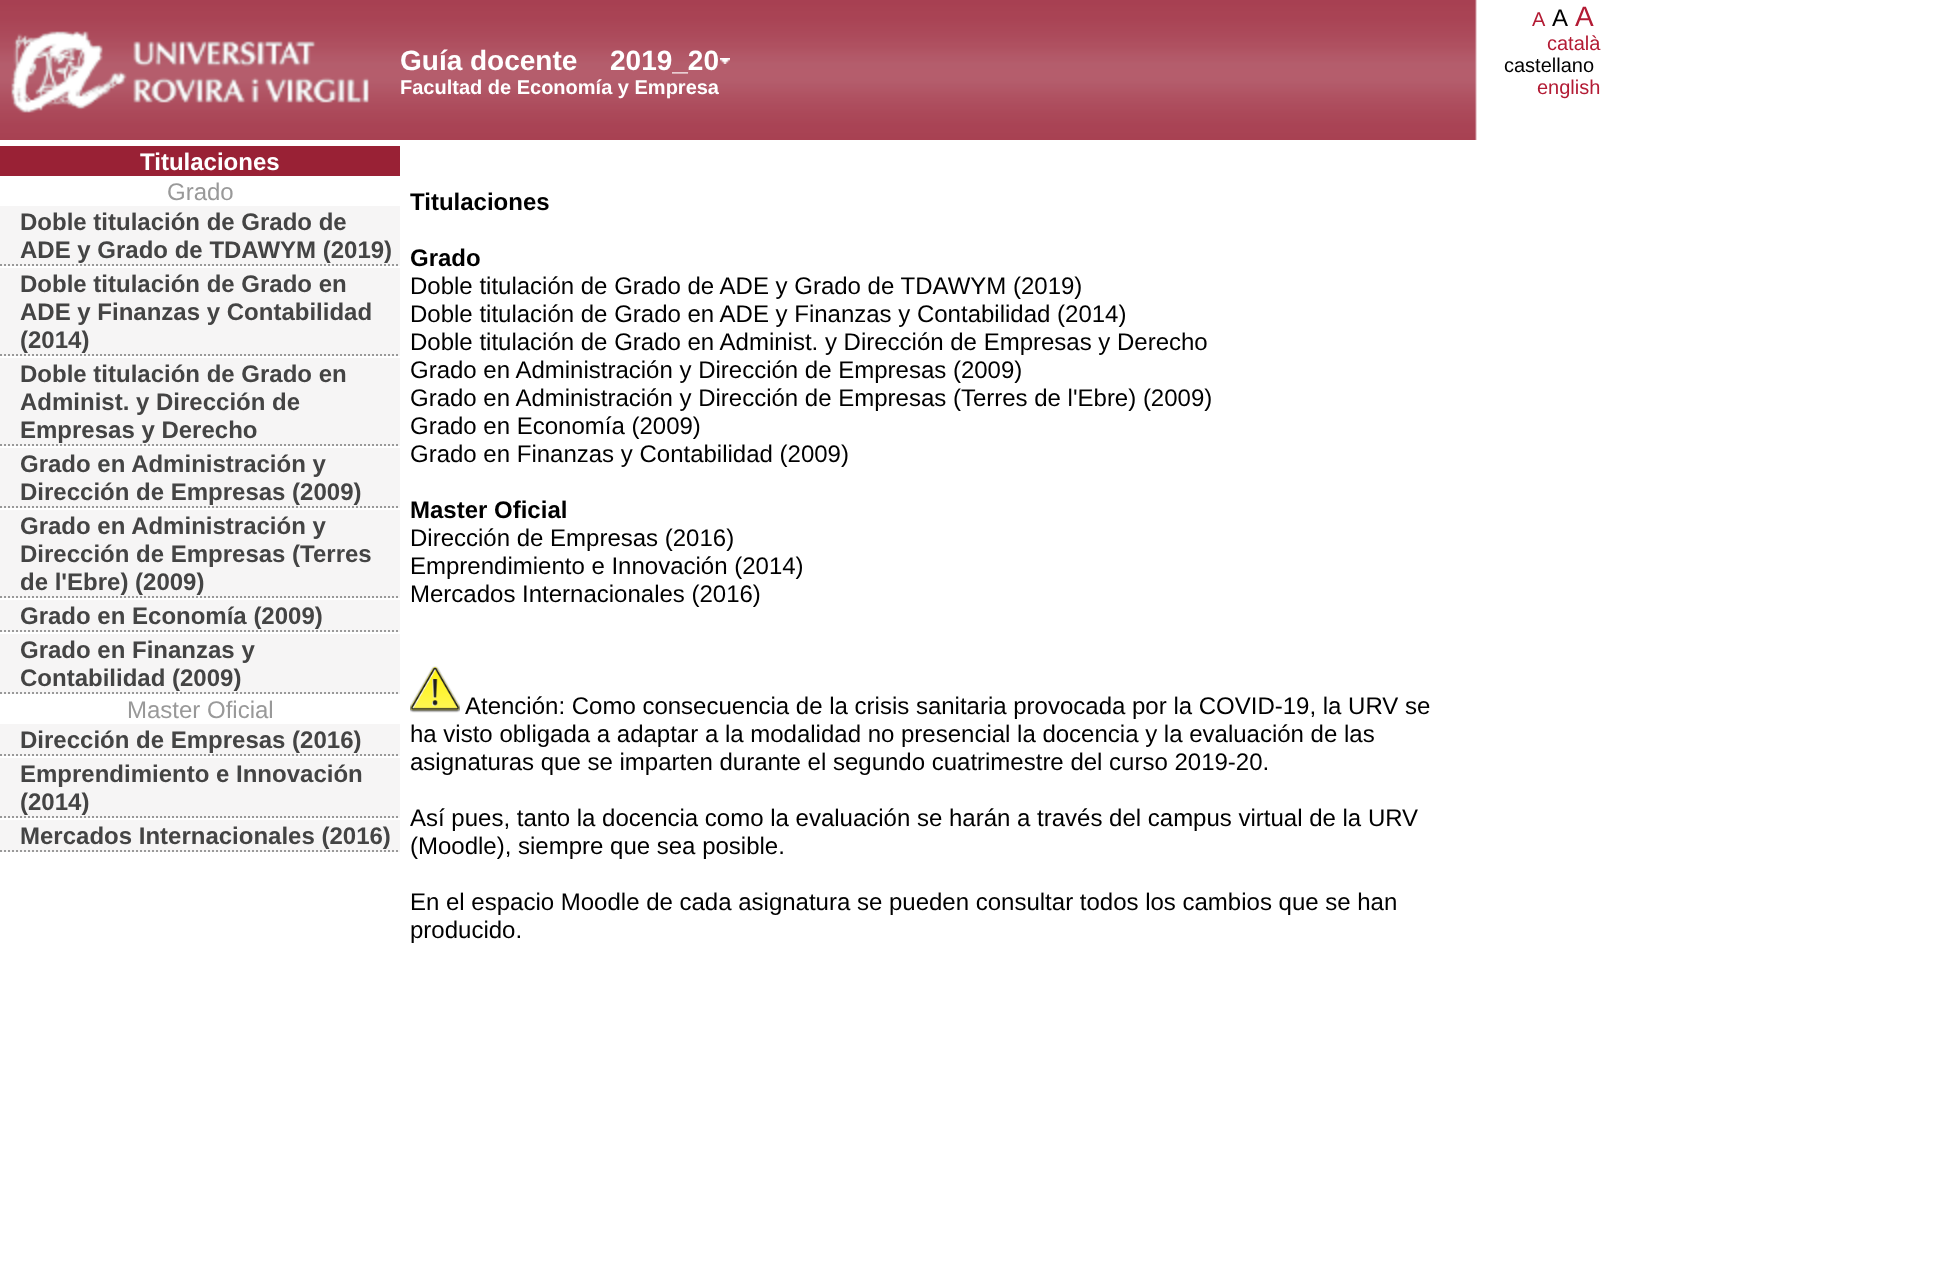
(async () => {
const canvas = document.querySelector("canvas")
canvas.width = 1942
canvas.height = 1281
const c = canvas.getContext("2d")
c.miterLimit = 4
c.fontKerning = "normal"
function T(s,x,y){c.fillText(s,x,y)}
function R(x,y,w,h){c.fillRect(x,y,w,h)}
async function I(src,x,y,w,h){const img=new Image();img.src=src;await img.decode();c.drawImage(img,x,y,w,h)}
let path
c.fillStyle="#fff"
R(0,0,1942,1281)
await I("1.png",0,0,1477,140)
c.font="bold 28px Liberation Sans"
T("Guía docente",400,70)
c.font="bold 20px Liberation Sans"
T("Facultad de Economía y Empresa",400,94)
c.font="20px Liberation Sans"
c.fillStyle="#b31b34"
T("A",1532,26)
c.font="24px Liberation Sans"
c.fillStyle="#000"
T("A",1552,26)
c.font="28px Liberation Sans"
c.fillStyle="#b31b34"
T("A",1575,26)
c.font="20px Liberation Sans"
T("català",1547,50)
c.fillStyle="#000"
T("castellano",1504,72)
c.fillStyle="#b31b34"
T("english",1537,94)
c.fillStyle="#992135"
R(0,146,400,30)
c.font="bold 24px Liberation Sans"
c.fillStyle="#fff"
T("Titulaciones",140,170)
c.font="24px Liberation Sans"
c.fillStyle="#999"
T("Grado",167,200)
c.fillStyle="#f6f5f5"
R(0,206,400,60)
path = new Path2D("M0 265h400")
c.strokeStyle="#999"
c.lineWidth=2
c.setLineDash([2,2])
c.stroke(path)
c.font="bold 24px Liberation Sans"
c.fillStyle="#444"
T("Doble titulación de Grado de",20,230)
T("ADE y Grado de TDAWYM (2019)",20,258)
c.fillStyle="#f6f5f5"
R(0,268,400,88)
path = new Path2D("M0 355h400")
c.stroke(path)
c.fillStyle="#444"
T("Doble titulación de Grado en",20,292)
T("ADE y Finanzas y Contabilidad",20,320)
T("(2014)",20,348)
c.fillStyle="#f6f5f5"
R(0,358,400,88)
path = new Path2D("M0 445h400")
c.stroke(path)
c.fillStyle="#444"
T("Doble titulación de Grado en",20,382)
T("Administ. y Dirección de",20,410)
T("Empresas y Derecho",20,438)
c.fillStyle="#f6f5f5"
R(0,448,400,60)
path = new Path2D("M0 507h400")
c.stroke(path)
c.fillStyle="#444"
T("Grado en Administración y",20,472)
T("Dirección de Empresas (2009)",20,500)
c.fillStyle="#f6f5f5"
R(0,510,400,88)
path = new Path2D("M0 597h400")
c.stroke(path)
c.fillStyle="#444"
T("Grado en Administración y",20,534)
T("Dirección de Empresas (Terres",20,562)
T("de l'Ebre) (2009)",20,590)
c.fillStyle="#f6f5f5"
R(0,600,400,32)
path = new Path2D("M0 631h400")
c.stroke(path)
c.fillStyle="#444"
T("Grado en Economía (2009)",20,624)
c.fillStyle="#f6f5f5"
R(0,634,400,60)
path = new Path2D("M0 693h400")
c.stroke(path)
c.fillStyle="#444"
T("Grado en Finanzas y",20,658)
T("Contabilidad (2009)",20,686)
c.font="24px Liberation Sans"
c.fillStyle="#999"
T("Master Oficial",127,718)
c.fillStyle="#f6f5f5"
R(0,724,400,32)
path = new Path2D("M0 755h400")
c.stroke(path)
c.font="bold 24px Liberation Sans"
c.fillStyle="#444"
T("Dirección de Empresas (2016)",20,748)
c.fillStyle="#f6f5f5"
R(0,758,400,60)
path = new Path2D("M0 817h400")
c.stroke(path)
c.fillStyle="#444"
T("Emprendimiento e Innovación",20,782)
T("(2014)",20,810)
c.fillStyle="#f6f5f5"
R(0,820,400,32)
path = new Path2D("M0 851h400")
c.stroke(path)
c.fillStyle="#444"
T("Mercados Internacionales (2016)",20,844)
c.fillStyle="#000"
T("Titulaciones",410,210)
T("Grado",410,266)
c.font="24px Liberation Sans"
T("Doble titulación de Grado de ADE y Grado de TDAWYM (2019)",410,294)
T("Doble titulación de Grado en ADE y Finanzas y Contabilidad (2014)",410,322)
T("Doble titulación de Grado en Administ. y Dirección de Empresas y Derecho",410,350)
T("Grado en Administración y Dirección de Empresas (2009)",410,378)
T("Grado en Administración y Dirección de Empresas (Terres de l'Ebre) (2009)",410,406)
T("Grado en Economía (2009)",410,434)
T("Grado en Finanzas y Contabilidad (2009)",410,462)
c.font="bold 24px Liberation Sans"
T("Master Oficial",410,518)
c.font="24px Liberation Sans"
T("Dirección de Empresas (2016)",410,546)
T("Emprendimiento e Innovación (2014)",410,574)
T("Mercados Internacionales (2016)",410,602)
await I("2.png",410,666,50,47)
T("Atención: Como consecuencia de la crisis sanitaria provocada por la COVID-19, la URV se",465,714)
T("ha visto obligada a adaptar a la modalidad no presencial la docencia y la evaluación de las",410,742)
T("asignaturas que se imparten durante el segundo cuatrimestre del curso 2019-20.",410,770)
T("Así pues, tanto la docencia como la evaluación se harán a través del campus virtual de la URV",410,826)
T("(Moodle), siempre que sea posible.",410,854)
T("En el espacio Moodle de cada asignatura se pueden consultar todos los cambios que se han",410,910)
T("producido.",410,938)
c.font="bold 28px Liberation Sans"
c.fillStyle="#fff"
T("2019_20",610,70)
await I("3.png",720,58,10,6)
})()
